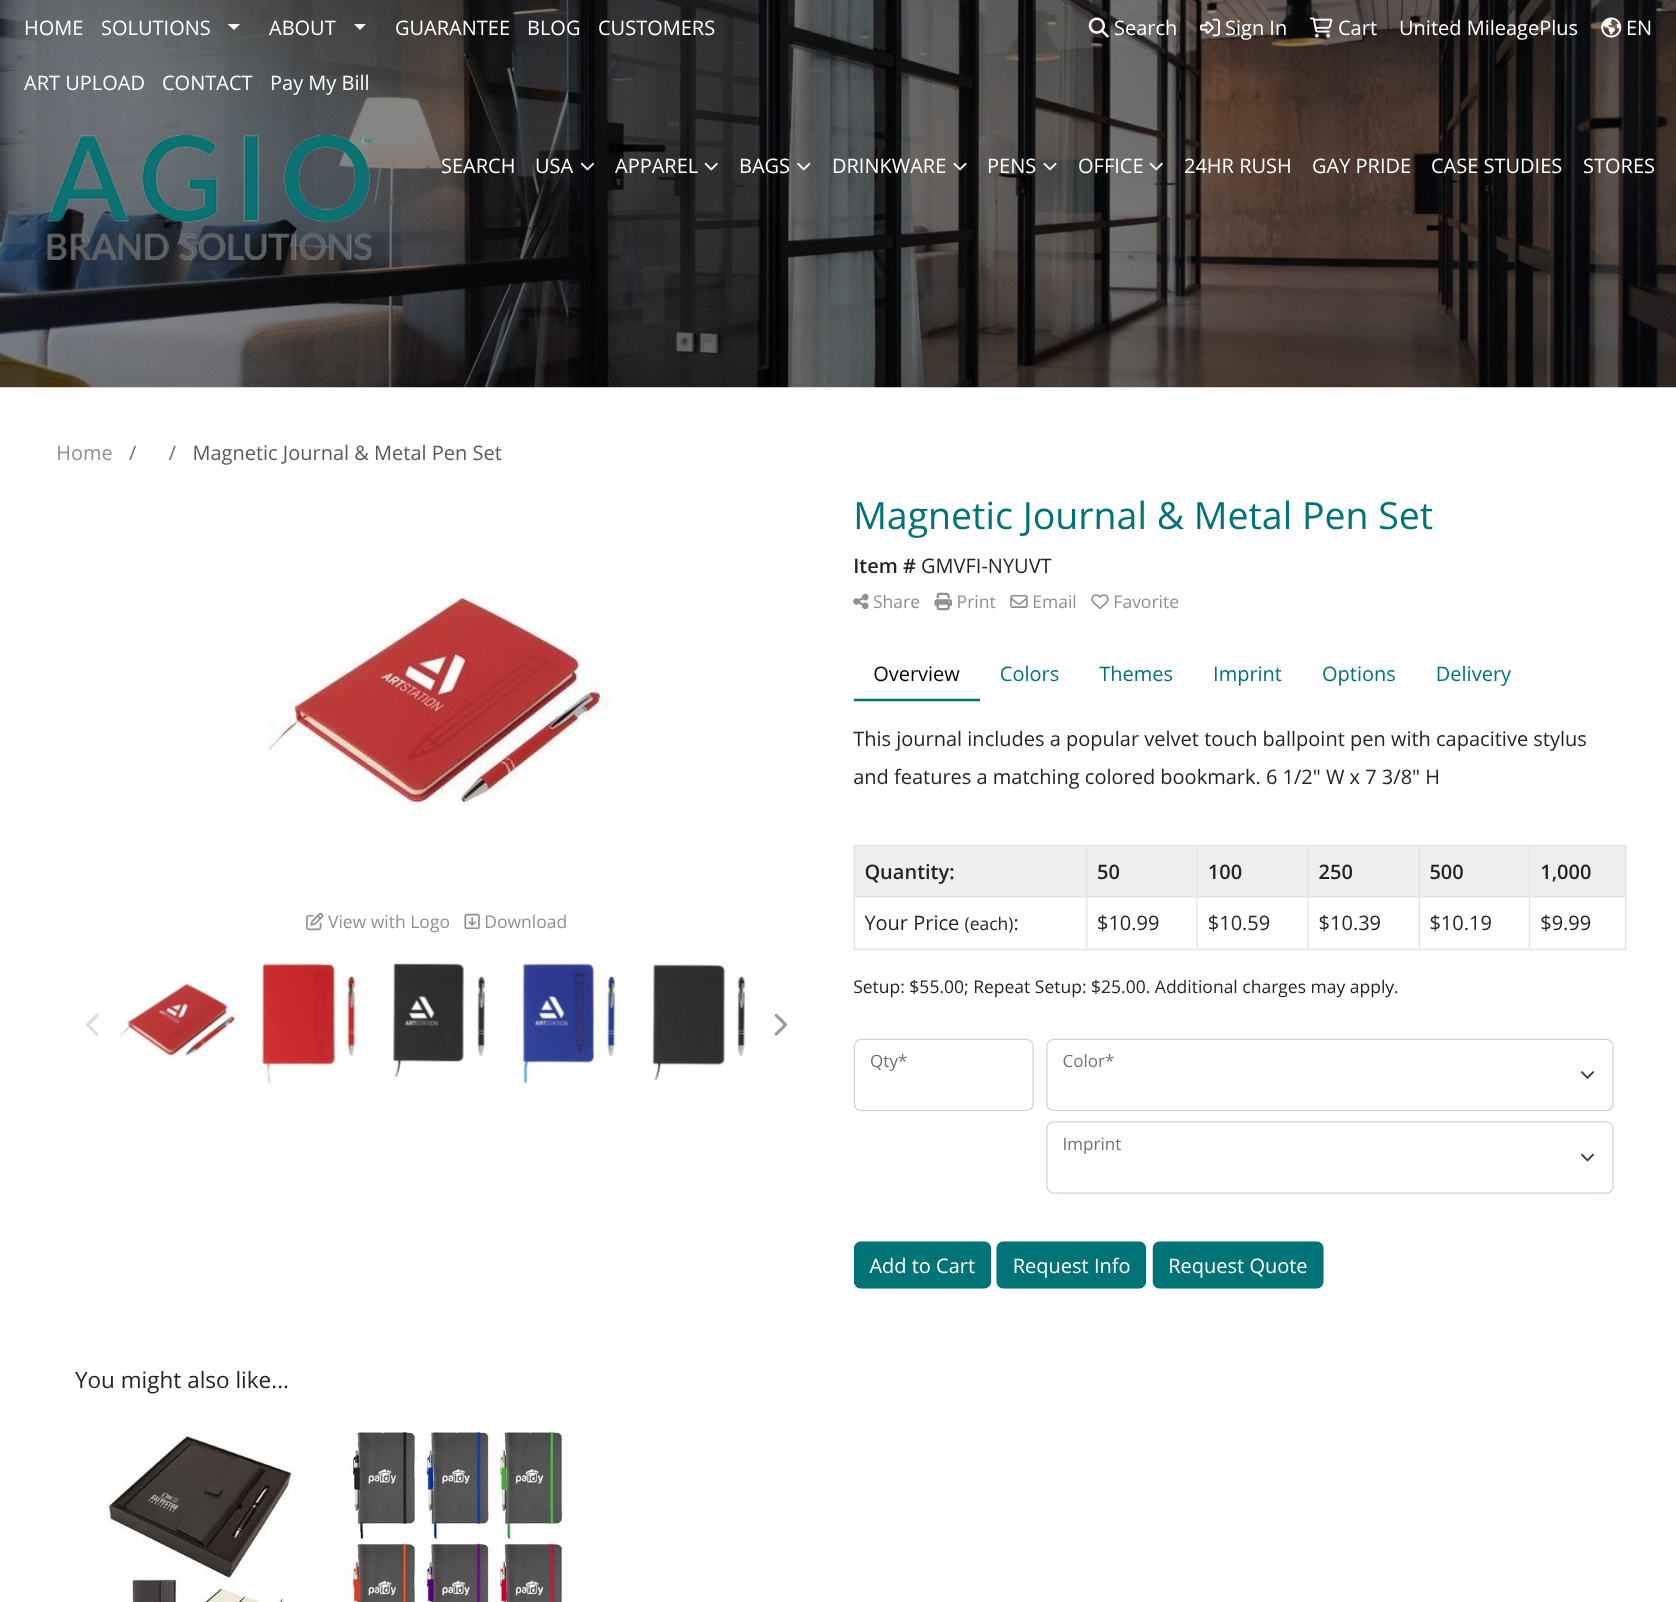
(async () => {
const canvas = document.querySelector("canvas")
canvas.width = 1676
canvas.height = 1602
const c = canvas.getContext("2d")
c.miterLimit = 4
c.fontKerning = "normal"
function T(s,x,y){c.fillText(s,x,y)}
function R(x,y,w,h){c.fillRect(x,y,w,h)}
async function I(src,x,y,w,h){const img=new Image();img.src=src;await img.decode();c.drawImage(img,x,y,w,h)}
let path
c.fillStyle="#fff"
R(0,0,1676,1602)
await I("1.png",0,0,1676,388)
c.font="20px Open Sans"
T("HOME",24,35)
T("SOLUTIONS",101,35)
path = new Path2D("M227.5 24h12.5l-6 6z")
c.fill(path)
T("ABOUT",269,35)
path = new Path2D("M354 24h12l-6 6z")
c.fill(path)
T("GUARANTEE",395,35)
T("BLOG",527,35)
T("CUSTOMERS",598,35)
T("ART UPLOAD",24,90)
T("CONTACT",162,90)
T("Pay My Bill",270,90)
await I("2.png",1088,17,21,21)
T("Search",1114,35)
await I("3.png",1200,18,20,19)
T("Sign In",1225,35)
await I("4.png",1310,17,23,21)
T("Cart",1338,35)
T("United MileagePlus",1399,35)
await I("5.png",1601,17,21,21)
T("EN",1626,35)
await I("6.png",47,135,325,125)
T("SEARCH",441,173)
T("USA",535,173)
await I("7.png",581,162,13,9)
T("APPAREL",615,173)
await I("8.png",704,162,14,9)
T("BAGS",739,173)
await I("9.png",797,162,14,9)
T("DRINKWARE",832,173)
await I("10.png",953,162,14,9)
T("PENS",987,173)
await I("11.png",1043,162,14,9)
T("OFFICE",1078,173)
await I("12.png",1149,162,14,9)
T("24HR RUSH",1184,173)
T("GAY PRIDE",1312,173)
T("CASE STUDIES",1431,173)
T("STORES",1583,173)
await I("13.png",58,444,1569,1158)
})()
